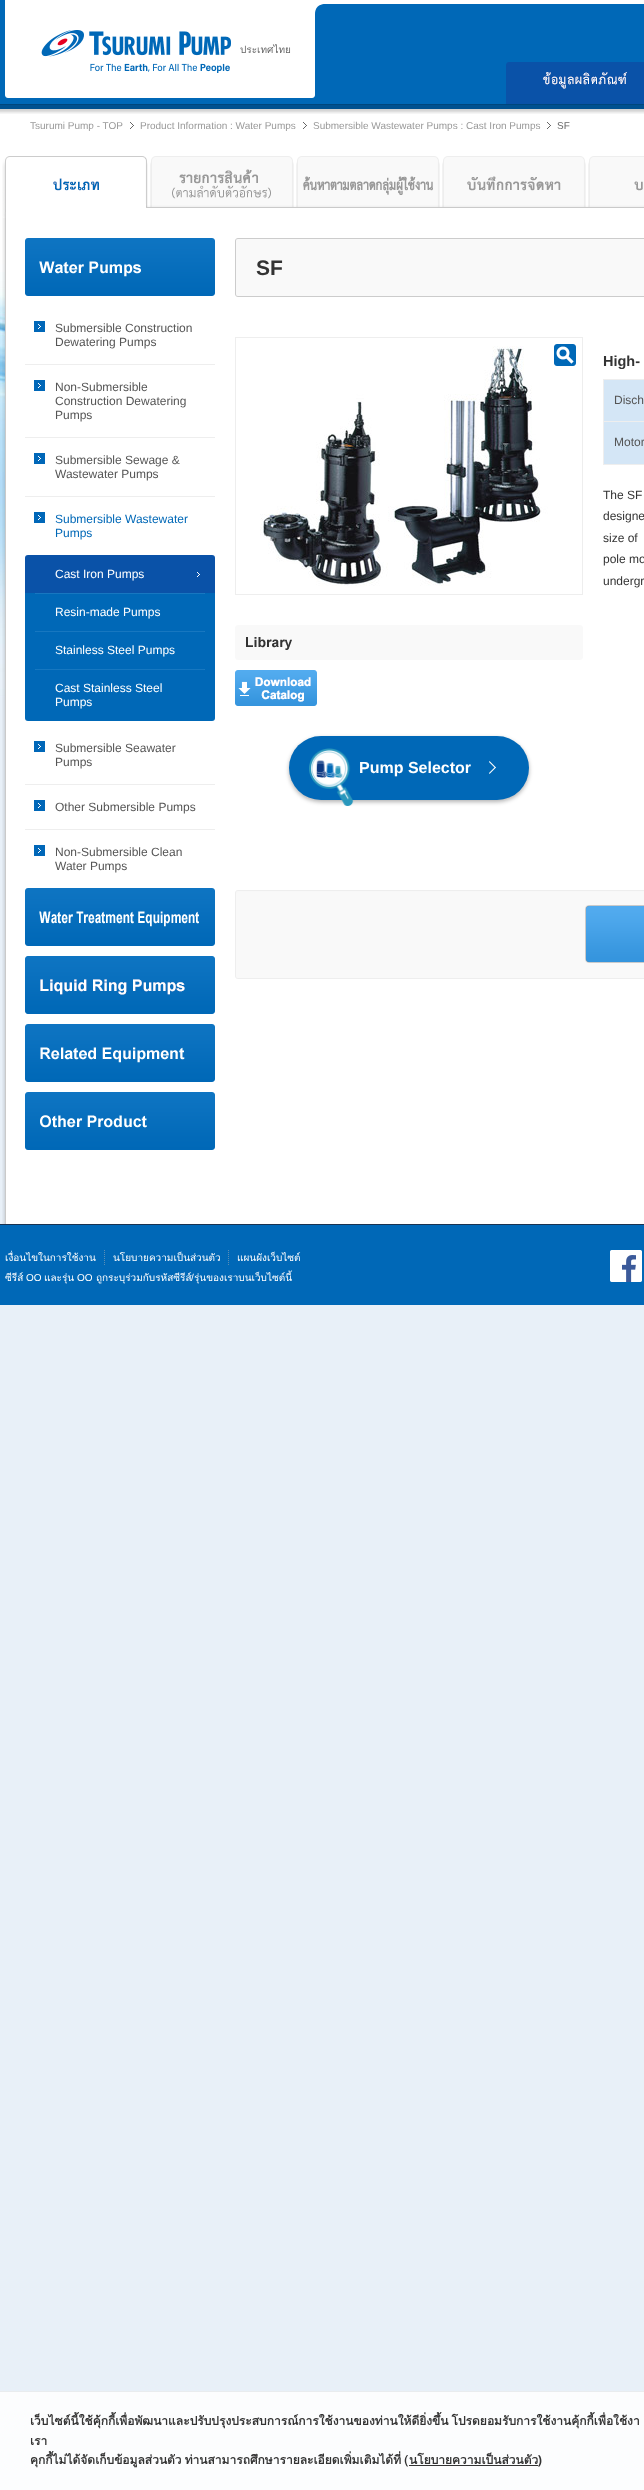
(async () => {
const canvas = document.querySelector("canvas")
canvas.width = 644
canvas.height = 2490
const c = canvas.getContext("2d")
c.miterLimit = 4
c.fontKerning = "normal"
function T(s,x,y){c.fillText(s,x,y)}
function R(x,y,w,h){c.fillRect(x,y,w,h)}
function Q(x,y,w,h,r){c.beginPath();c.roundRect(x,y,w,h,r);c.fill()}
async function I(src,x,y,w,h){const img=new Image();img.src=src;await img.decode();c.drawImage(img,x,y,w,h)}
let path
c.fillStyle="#e8f0f8"
R(0,0,644,2490)
await I("1.png",0,114,644,583)
await I("2.png",0,105,644,9)
c.fillStyle="#0068b7"
R(0,0,506,104)
c.fillStyle="#00477d"
R(0,104,644,1)
await I("3.png",5,0,639,98)
await I("4.png",41,30,190,43)
c.font="10px Loma"
c.fillStyle="#666"
T("ประเทศไทย",240,53)
await I("5.png",506,62,138,42)
c.font="10px Liberation Sans"
c.fillStyle="#999"
T("Tsurumi Pump - TOP",30,129)
await I("6.png",130,122,4,7)
T("Product Information : Water Pumps",140,129)
await I("6.png",303,122,4,7)
T("Submersible Wastewater Pumps : Cast Iron Pumps",313,129)
await I("6.png",547,122,4,7)
c.fillStyle="#666"
T("SF",557,129)
await I("7.png",147,156,497,62)
await I("8.png",2,156,145,62)
await I("9.png",2,218,642,942)
await I("10.png",25,238,190,58)
c.fillStyle="#eee"
R(25,364,190,1)
await I("11.png",34,321,11,11)
c.font="12px Liberation Sans"
c.fillStyle="#555"
T("Submersible Construction",55,332)
T("Dewatering Pumps",55,346)
c.fillStyle="#eee"
R(25,437,190,1)
await I("11.png",34,380,11,11)
c.fillStyle="#555"
T("Non-Submersible",55,391)
T("Construction Dewatering",55,405)
T("Pumps",55,419)
c.fillStyle="#eee"
R(25,496,190,1)
await I("11.png",34,453,11,11)
c.fillStyle="#555"
T("Submersible Sewage &",55,464)
T("Wastewater Pumps",55,478)
await I("11.png",34,512,11,11)
c.fillStyle="#0068b7"
T("Submersible Wastewater",55,523)
T("Pumps",55,537)
c.fillStyle="#0a52a8"
c.beginPath()
c.roundRect(25,555,190,38,[3,3,0,0])
c.fill()
await I("12.png",197,572,3,5)
c.fillStyle="#fff"
T("Cast Iron Pumps",55,578)
c.fillStyle="#0068b7"
R(25,593,190,76)
await I("13.png",35,593,170,1)
c.fillStyle="#fff"
T("Resin-made Pumps",55,616)
await I("13.png",35,631,170,1)
T("Stainless Steel Pumps",55,654)
c.fillStyle="#0068b7"
c.beginPath()
c.roundRect(25,669,190,52,[0,0,3,3])
c.fill()
await I("13.png",35,669,170,1)
c.fillStyle="#fff"
T("Cast Stainless Steel",55,692)
T("Pumps",55,706)
c.fillStyle="#eee"
R(25,784,190,1)
await I("11.png",34,741,11,11)
c.fillStyle="#555"
T("Submersible Seawater",55,752)
T("Pumps",55,766)
c.fillStyle="#eee"
R(25,829,190,1)
await I("11.png",34,800,11,11)
c.fillStyle="#555"
T("Other Submersible Pumps",55,811)
await I("11.png",34,845,11,11)
T("Non-Submersible Clean",55,856)
T("Water Pumps",55,870)
await I("14.png",25,888,190,58)
await I("15.png",25,956,190,58)
await I("16.png",25,1024,190,58)
await I("17.png",25,1092,190,58)
await I("18.png",235,238,409,10)
await I("19.png",235,248,409,49)
c.font="bold 21px Liberation Sans"
c.fillStyle="#333"
T("SF",256,275)
c.font="bold 14.5px Liberation Sans"
T("High-",603,366)
c.fillStyle="#eee"
R(603,379,41,1)
R(603,379,1,86)
c.fillStyle="#d4e6f6"
R(604,380,40,41)
c.fillStyle="#eee"
R(604,421,40,1)
c.font="12px Liberation Sans"
c.fillStyle="#555"
T("Disch",614,404)
c.fillStyle="#d4e6f6"
R(604,422,40,42)
c.fillStyle="#eee"
R(604,464,40,1)
c.fillStyle="#555"
T("Motor",614,446)
c.fillStyle="#333"
T("The SF",603,499)
T("designe",603,520)
T("size of",603,542)
T("pole mo",603,563)
T("undergr",603,585)
c.strokeStyle="#eee"
c.strokeRect(235.5,337.5,347,257)
await I("20.png",236,338,345,256)
await I("21.png",554,344,22,22)
await I("22.png",235,625,348,35)
await I("23.png",235,670,82,36)
c.fillStyle="#0000004d"
c.filter="blur(2px)"
c.beginPath()
c.roundRect(289,738,240,64,32)
c.fill()
c.filter="none"
c.fillStyle="#0068b7"
Q(289,736,240,64,32)
await I("24.png",309,748,45,58)
c.font="bold 16px Liberation Sans"
c.fillStyle="#fff"
T("Pump Selector",359,773)
path = new Path2D("M489.5 761l6.5 6.5l-1 .5l-6-6z")
c.fill(path)
path = new Path2D("M495 767l1 .5l-6.5 6.5l-.5-1z")
c.fill(path)
await I("25.png",235,890,409,89)
await I("26.png",585,905,59,58)
await I("27.png",2,1160,642,64)
c.fillStyle="#0068b7"
R(0,1225,644,80)
c.fillStyle="#193251"
R(0,1224,644,1)
path = new Path2D("M104.5 1250v15")
c.strokeStyle="#5a8eb5"
c.setLineDash([1,1])
c.stroke(path)
c.font="10px Loma"
c.fillStyle="#fff"
T("เงื่อนไขในการใช้งาน",5,1261)
path = new Path2D("M228.5 1250v15")
c.stroke(path)
T("นโยบายความเป็นส่วนตัว",113,1261)
T("แผนผังเว็บไซต์",237,1261)
T("ซีรีส์",5,1281)
T("และรุ่น",44,1281)
c.font="10px Liberation Sans"
T("OO",77,1281)
c.font="10px Loma"
T("ถูกระบุร่วมกับรหัสซีรีส์",96,1281)
c.font="10px Liberation Sans"
T("/",191,1281)
c.font="10px Loma"
T("รุ่นของเราบนเว็บไซต์นี้",194,1281)
c.font="10px Liberation Sans"
T("OO",26,1281)
await I("28.png",610,1250,32,32)
c.fillStyle="#fcfdfe"
R(0,2392,644,98)
c.fillStyle="#e9ecee"
R(0,2391,644,1)
c.wordSpacing="-1px"
c.font="bold 12px Loma"
c.fillStyle="#333"
T("เว็บไซต์นี้ใช้คุ้กกี้เพื่อพัฒนาและปรับปรุงประสบการณ์การใช้งานของท่านให้ดียิ่งขึ้น โปรดยอมรับการใช้งานคุ้กกี้เพื่อใช้งา",30,2425)
c.wordSpacing="0px"
T("เรา",30,2445)
c.wordSpacing="-1px"
T("คุกกี้ไม่ได้จัดเก็บข้อมูลส่วนตัว ท่านสามารถศึกษารายละเอียดเพิ่มเติมได้ที่ (",30,2464)
c.wordSpacing="0px"
T("นโยบายความเป็นส่วนตัว",409,2464)
R(409,2465,129,1)
c.font="bold 12px Liberation Sans"
T(")",538,2464)
})()
